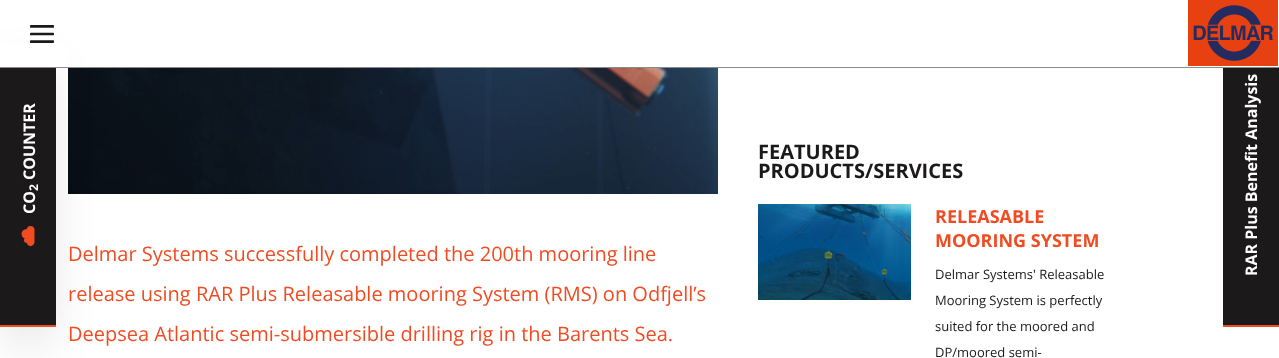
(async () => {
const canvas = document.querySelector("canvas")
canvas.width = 1279
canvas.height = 358
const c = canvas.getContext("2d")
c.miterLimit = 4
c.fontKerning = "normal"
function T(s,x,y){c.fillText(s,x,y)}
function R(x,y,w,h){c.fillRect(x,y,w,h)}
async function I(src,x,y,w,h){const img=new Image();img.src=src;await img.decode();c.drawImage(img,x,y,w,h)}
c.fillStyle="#fff"
R(0,0,1279,358)
await I("4.png",68,68,650,126)
c.fillStyle="#00000033"
c.filter="blur(25px)"
c.beginPath()
c.rect(15,72,26,270)
c.fill()
c.filter="none"
c.fillStyle="#fff"
R(0,43,68,24)
c.fillStyle="#8c8b8c"
R(0,67,1279,1)
await I("1.png",30,25,24,18)
await I("2.png",1188,0,90,66)
c.fillStyle="#1b1919"
R(0,68,56,257)
c.fillStyle="#f04c23"
R(0,325,56,2)
c.font="bold 16px Open Sans"
c.fillStyle="#fff"
c.save()
c.translate(35,180)
c.rotate(-90 * Math.PI / 180)
c.fillText("COUNTER",0,0)
c.restore()
c.font="bold 12px Open Sans"
c.save()
c.translate(38,191)
c.rotate(-90 * Math.PI / 180)
c.fillText("2",0,0)
c.restore()
c.font="bold 16px Open Sans"
c.save()
c.translate(35,214)
c.rotate(-90 * Math.PI / 180)
c.fillText("CO",0,0)
c.restore()
await I("3.png",21,226,14,20)
c.font="20px Open Sans"
c.fillStyle="#f04c23"
T("Delmar Systems successfully completed the 200th mooring line",68,261)
T("release using RAR Plus Releasable mooring System (RMS) on Odfjell’s",68,301)
T("Deepsea Atlantic semi-submersible drilling rig in the Barents Sea.",68,341)
c.font="bold 20px Open Sans"
c.fillStyle="#1b1919"
T("FEATURED",758,159)
T("PRODUCTS/SERVICES",758,178)
await I("5.png",758,204,153,96)
c.font="bold 18px Open Sans"
c.fillStyle="#f04c23"
T("RELEASABLE",935,223)
T("MOORING SYSTEM",935,247)
c.font="13px Open Sans"
c.fillStyle="#1b1919"
T("Delmar Systems' Releasable",935,279)
T("Mooring System is perfectly",935,305)
T("suited for the moored and",935,331)
T("DP/moored semi-",935,357)
R(1223,68,56,257)
c.fillStyle="#f04c23"
R(1223,325,56,2)
c.font="bold 16px Open Sans"
c.fillStyle="#fff"
c.save()
c.translate(1257,276)
c.rotate(-90 * Math.PI / 180)
c.fillText("RAR Plus Benefit Analysis",0,0)
c.restore()
})()
